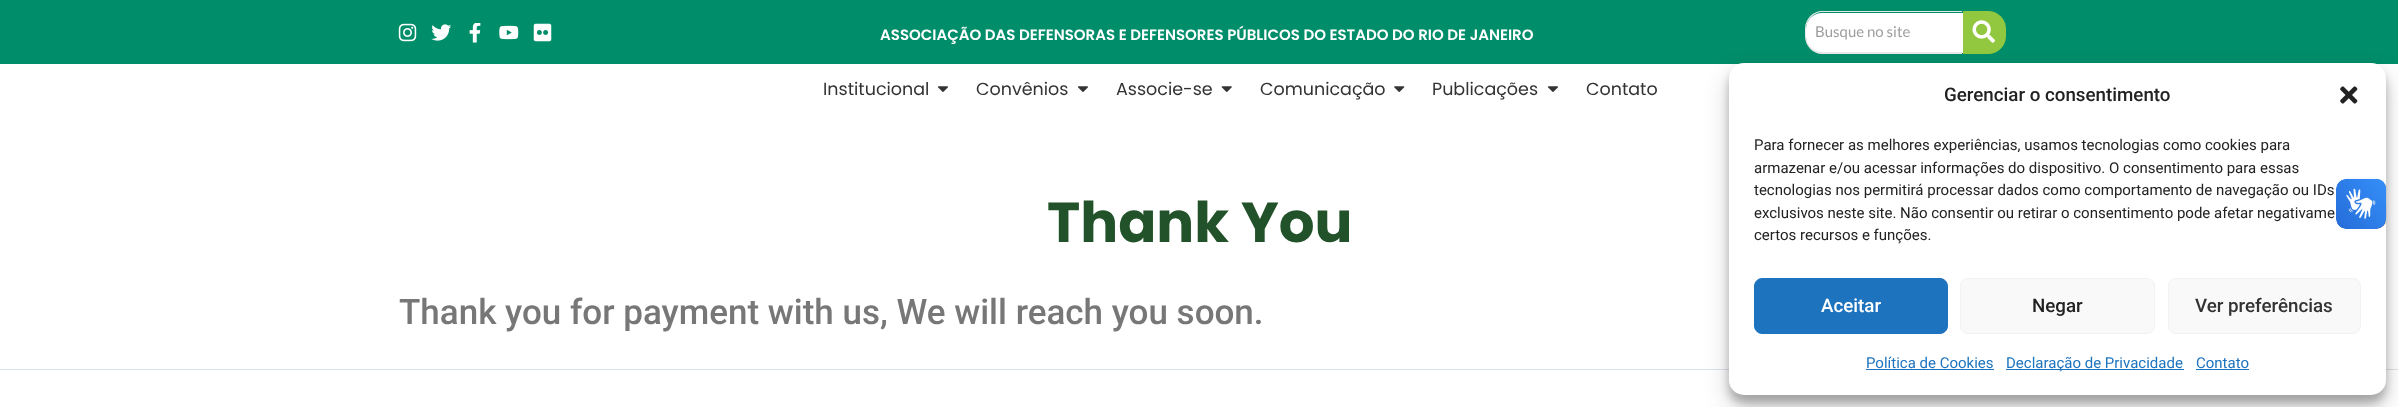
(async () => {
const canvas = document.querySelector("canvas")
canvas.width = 2398
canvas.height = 407
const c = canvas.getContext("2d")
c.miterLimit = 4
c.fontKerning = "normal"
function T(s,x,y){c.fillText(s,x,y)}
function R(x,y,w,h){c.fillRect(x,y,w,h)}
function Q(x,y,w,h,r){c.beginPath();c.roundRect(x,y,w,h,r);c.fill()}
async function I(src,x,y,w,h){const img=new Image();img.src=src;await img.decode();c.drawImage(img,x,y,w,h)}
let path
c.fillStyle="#fff"
R(0,0,2398,407)
c.fillStyle="#008d6a"
R(0,0,2398,64)
await I("1.png",398,23,19,19)
await I("2.png",431,24,20,17)
await I("3.png",469,23,12,20)
await I("4.png",499,25,20,15)
await I("5.png",533,23,19,19)
c.font="600 15px Poppins"
c.fillStyle="#fff"
T("ASSOCIAÇÃO DAS DEFENSORAS E DEFENSORES PÚBLICOS DO ESTADO DO RIO DE JANEIRO",880,40)
c.beginPath()
c.roundRect(1806,13,157,40,[16,0,0,16])
c.fill()
c.fillStyle="#e8e8e8"
path = new Path2D("M1822 11h140v43h-140c-9 0-17-8-17-18v-7c0-10 8-18 17-18zm0 1h140v40h-140c-8 0-16-7-16-16v-7c0-9 8-17 16-17z")
c.fill(path,"evenodd")
c.font="15px Lato"
c.fillStyle="#9e9e9e"
T("Busque no site",1815,37)
c.fillStyle="#92c83f"
c.beginPath()
c.roundRect(1963,11,43,43,[0,18,18,0])
c.fill()
await I("6.png",1972,20,23,23)
c.font="17.5px Poppins"
c.fillStyle="#333"
T("Institucional",823,95)
await I("7.png",937,86,11,6)
T("Convênios",976,95)
await I("7.png",1077,86,11,6)
T("Associe-se",1116,95)
await I("8.png",1221,86,11,6)
T("Comunicação",1260,95)
await I("9.png",1394,86,11,6)
T("Publicações",1432,95)
await I("7.png",1547,86,11,6)
T("Contato",1586,95)
c.font="bold 56.25px Poppins"
c.fillStyle="#225229"
T("Thank You",1047,242)
c.font="500 35px Roboto"
c.fillStyle="#777"
T("Thank you for payment with us, We will reach you soon.",399,324)
c.fillStyle="#dce2e9"
R(0,369,2398,1)
c.fillStyle="#0000003b"
c.filter="blur(4px)"
c.beginPath()
c.roundRect(1729,70,657,333,15)
c.fill()
c.filter="none"
c.fillStyle="#00000030"
c.filter="blur(12.5px)"
c.beginPath()
c.roundRect(1729,75,657,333,15)
c.fill()
c.filter="none"
c.fillStyle="#fff"
Q(1729,63,657,332,15)
c.font="500 18.75px Roboto"
c.fillStyle="#222"
T("Gerenciar o consentimento",1944,101)
await I("10.png",2340,86,18,18)
c.font="15px Roboto"
T("Para fornecer as melhores experiências, usamos tecnologias como cookies para",1754,150)
T("armazenar e/ou acessar informações do dispositivo. O consentimento para essas",1754,173)
T("tecnologias nos permitirá processar dados como comportamento de navegação ou IDs",1754,195)
T("exclusivos neste site. Não consentir ou retirar o consentimento pode afetar negativame",1754,218)
T("certos recursos e funções.",1754,240)
c.fillStyle="#1e73be"
c.beginPath()
c.roundRect(1754.5,278.5,193,55,7.5)
c.fill()
c.strokeStyle="#1e73be"
c.stroke()
c.font="500 18.75px Roboto"
c.fillStyle="#fff"
T("Aceitar",1821,312)
c.fillStyle="#f9f9f9"
c.beginPath()
c.roundRect(1960.5,278.5,194,55,7.5)
c.fill()
c.strokeStyle="#f2f2f2"
c.stroke()
c.fillStyle="#222"
T("Negar",2032,312)
c.fillStyle="#f9f9f9"
c.beginPath()
c.roundRect(2168.5,278.5,192,55,7.5)
c.fill()
c.stroke()
c.fillStyle="#333"
T("Ver preferências",2195,312)
c.font="15px Roboto"
c.fillStyle="#1e73be"
T("Política de Cookies",1866,368)
R(1866,369,128,1)
R(2006,369,178,1)
T("Declaração de Privacidade",2006,368)
T("Contato",2196,368)
R(2196,369,53,1)
await I("11.png",2336,178,51,51)
await I("12.png",2336,179,50,50)
})()
